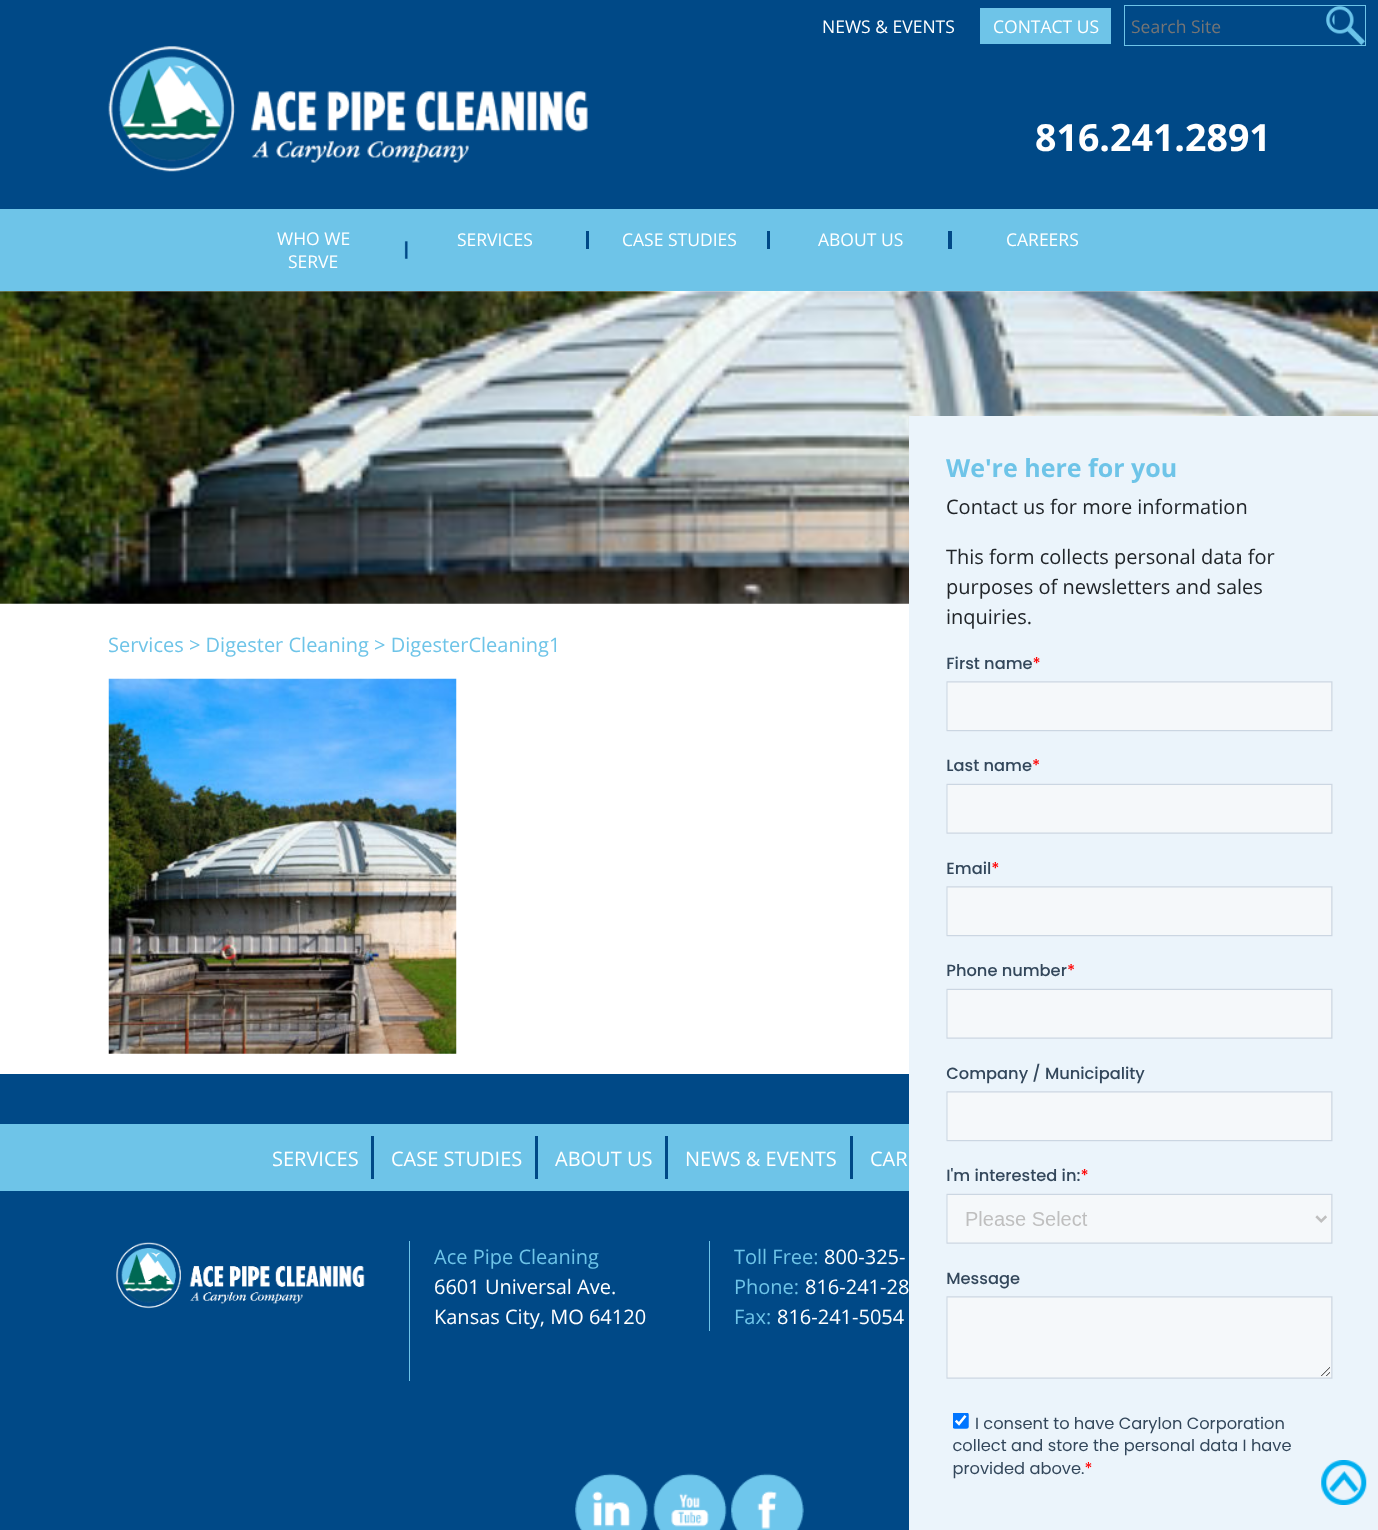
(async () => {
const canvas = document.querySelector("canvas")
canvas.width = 1378
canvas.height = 1530
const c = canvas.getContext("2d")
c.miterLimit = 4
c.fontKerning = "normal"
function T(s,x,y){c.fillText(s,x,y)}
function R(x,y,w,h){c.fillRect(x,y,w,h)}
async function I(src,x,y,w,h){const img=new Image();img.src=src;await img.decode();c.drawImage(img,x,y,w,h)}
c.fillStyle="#fff"
R(0,0,1378,1530)
c.fillStyle="#004987"
R(0,0,1378,209)
c.font="17.5px Open Sans"
c.fillStyle="#fff"
T("NEWS & EVENTS",822,33)
c.fillStyle="#6ec4e8"
R(980,8,131,36)
c.fillStyle="#fff"
T("CONTACT US",993,33)
await I("1.png",1326,6,39,39)
c.strokeStyle="#6ec4e8"
c.strokeRect(1124.5,5.5,241,40)
c.fillStyle="#757575"
T("Search Site",1131,33)
await I("2.png",108,46,480,126)
c.font="bold 37.5px Open Sans"
c.fillStyle="#fff"
T("816.241.2891",1035,151)
c.fillStyle="#6ec4e8"
R(0,209,1378,82)
await I("3.png",404,241,4,18)
c.font="17.5px Open Sans"
c.fillStyle="#fff"
T("WHO WE",277,245)
T("SERVE",288,268)
c.fillStyle="#004987"
R(586,231,3,18)
c.fillStyle="#fff"
T("SERVICES",457,246)
c.fillStyle="#004987"
R(767,231,3,18)
c.fillStyle="#fff"
T("CASE STUDIES",622,246)
c.fillStyle="#004987"
R(948,231,4,18)
c.fillStyle="#fff"
T("ABOUT US",818,246)
T("CAREERS",1006,246)
await I("4.png",0,291,1378,313)
c.fillStyle="#ebf4fb"
R(909,416,469,1114)
c.font="bold 25px Open Sans"
c.fillStyle="#6ec4e8"
T("We're here for you",946,477)
c.font="20px Open Sans"
c.fillStyle="#212529"
T("Contact us for more information",946,514)
T("This form collects personal data for",946,564)
T("purposes of newsletters and sales",946,594)
T("inquiries.",946,624)
await I("5.png",946,656,387,823)
c.fillStyle="#6ec4e8"
T("Services > Digester Cleaning > DigesterCleaning1",108,652)
await I("6.png",108,678,349,376)
c.fillStyle="#004987"
R(0,1074,909,456)
c.fillStyle="#6ec4e8"
R(0,1124,909,67)
c.fillStyle="#004987"
R(371,1136,3,43)
c.fillStyle="#fff"
T("SERVICES",272,1166)
c.fillStyle="#004987"
R(535,1136,3,43)
c.fillStyle="#fff"
T("CASE STUDIES",391,1166)
c.fillStyle="#004987"
R(665,1136,3,43)
c.fillStyle="#fff"
T("ABOUT US",555,1166)
c.fillStyle="#004987"
R(850,1136,3,43)
c.fillStyle="#fff"
T("NEWS & EVENTS",685,1166)
T("CAR",870,1166)
await I("7.png",116,1242,249,67)
c.fillStyle="#6ec4e8"
R(409,1241,1,140)
T("Ace Pipe Cleaning",434,1264)
c.fillStyle="#fff"
T("6601 Universal Ave.",434,1294)
T("Kansas City, MO 64120",434,1324)
c.fillStyle="#6ec4e8"
R(709,1241,1,90)
T("Toll Free:",734,1264)
c.fillStyle="#fff"
T("800-325-",824,1264)
c.fillStyle="#6ec4e8"
T("Phone:",734,1294)
c.fillStyle="#fff"
T("816-241-28",805,1294)
c.fillStyle="#6ec4e8"
T("Fax:",734,1324)
c.fillStyle="#fff"
T("816-241-5054",777,1324)
await I("8.png",575,1473,73,57)
await I("9.png",653,1473,74,57)
await I("10.png",731,1473,73,57)
await I("11.png",1321,1460,46,45)
})()
